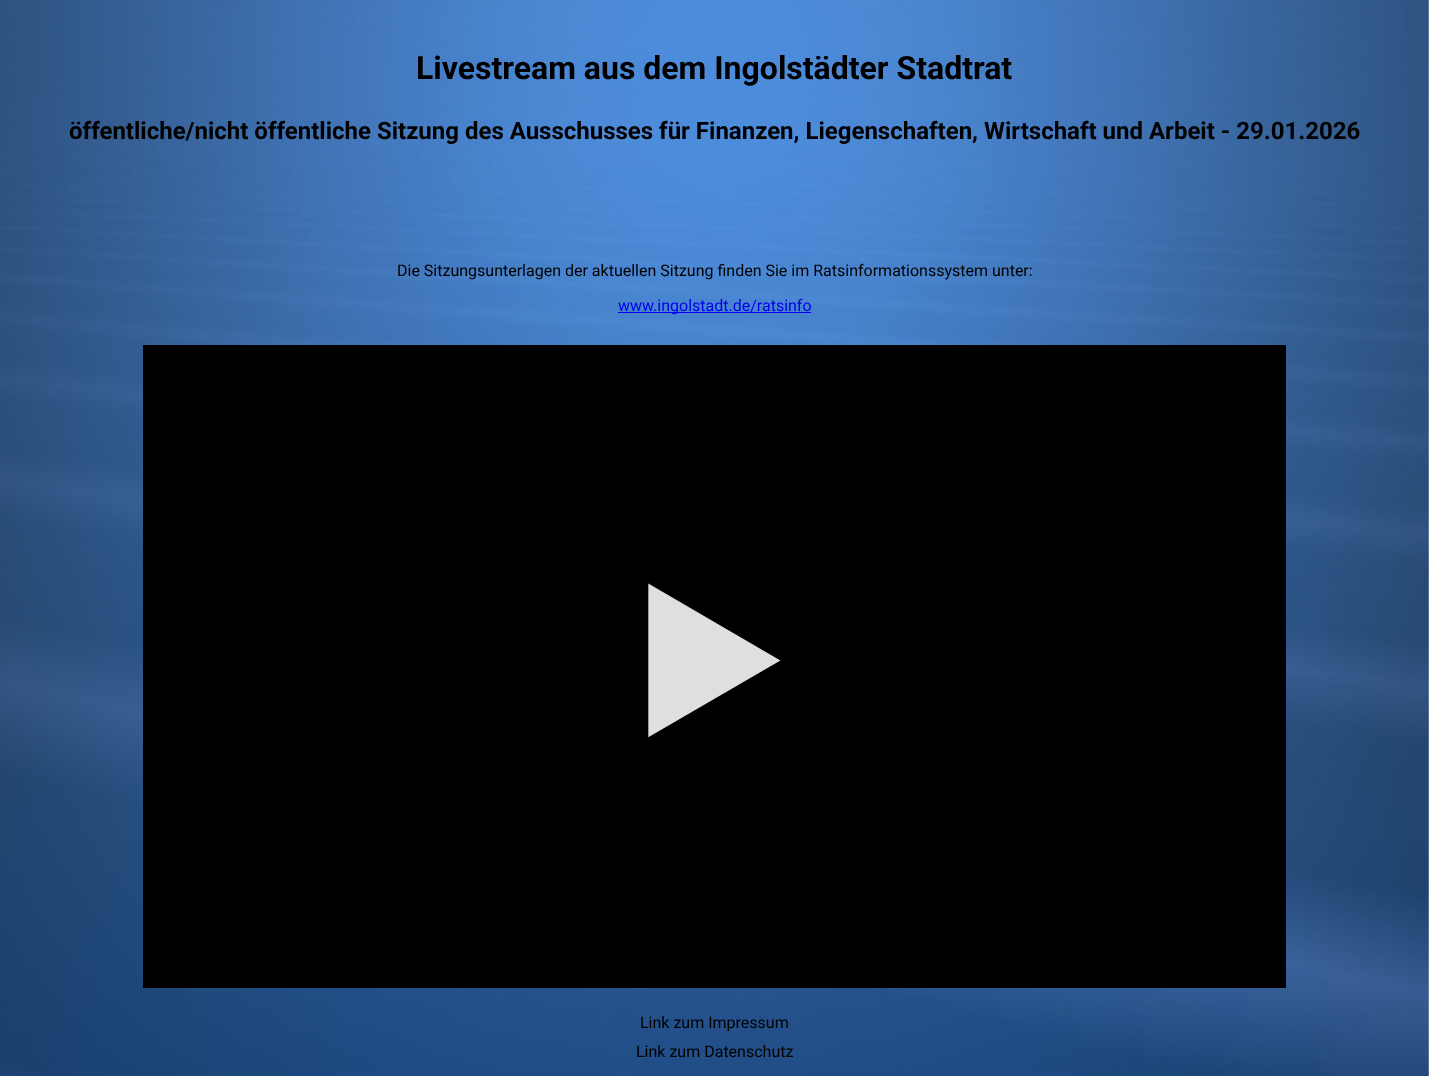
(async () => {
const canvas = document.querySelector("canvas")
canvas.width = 1429
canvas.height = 1076
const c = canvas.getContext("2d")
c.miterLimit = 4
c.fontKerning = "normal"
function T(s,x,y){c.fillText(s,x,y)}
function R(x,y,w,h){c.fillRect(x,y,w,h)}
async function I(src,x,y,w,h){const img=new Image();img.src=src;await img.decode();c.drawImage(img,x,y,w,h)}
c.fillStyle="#fff"
R(0,0,1429,1076)
await I("1.png",0,0,1429,1076)
c.font="bold 32px Roboto"
c.fillStyle="#000"
T("Livestream aus dem Ingolstädter Stadtrat",416,79)
c.font="bold 24px Roboto"
T("öffentliche/nicht öffentliche Sitzung des Ausschusses für Finanzen, Liegenschaften, Wirtschaft und Arbeit - 29.01.2026",69,139)
c.font="16px Roboto"
T("Die Sitzungsunterlagen der aktuellen Sitzung finden Sie im Ratsinformationssystem unter:",397,276)
c.fillStyle="#00e"
R(618,312,193,1)
T("www.ingolstadt.de/ratsinfo",618,311)
await I("2.png",143,345,1143,643)
c.fillStyle="#000"
T("Link zum Impressum",640,1028)
T("Link zum Datenschutz",636,1057)
})()
